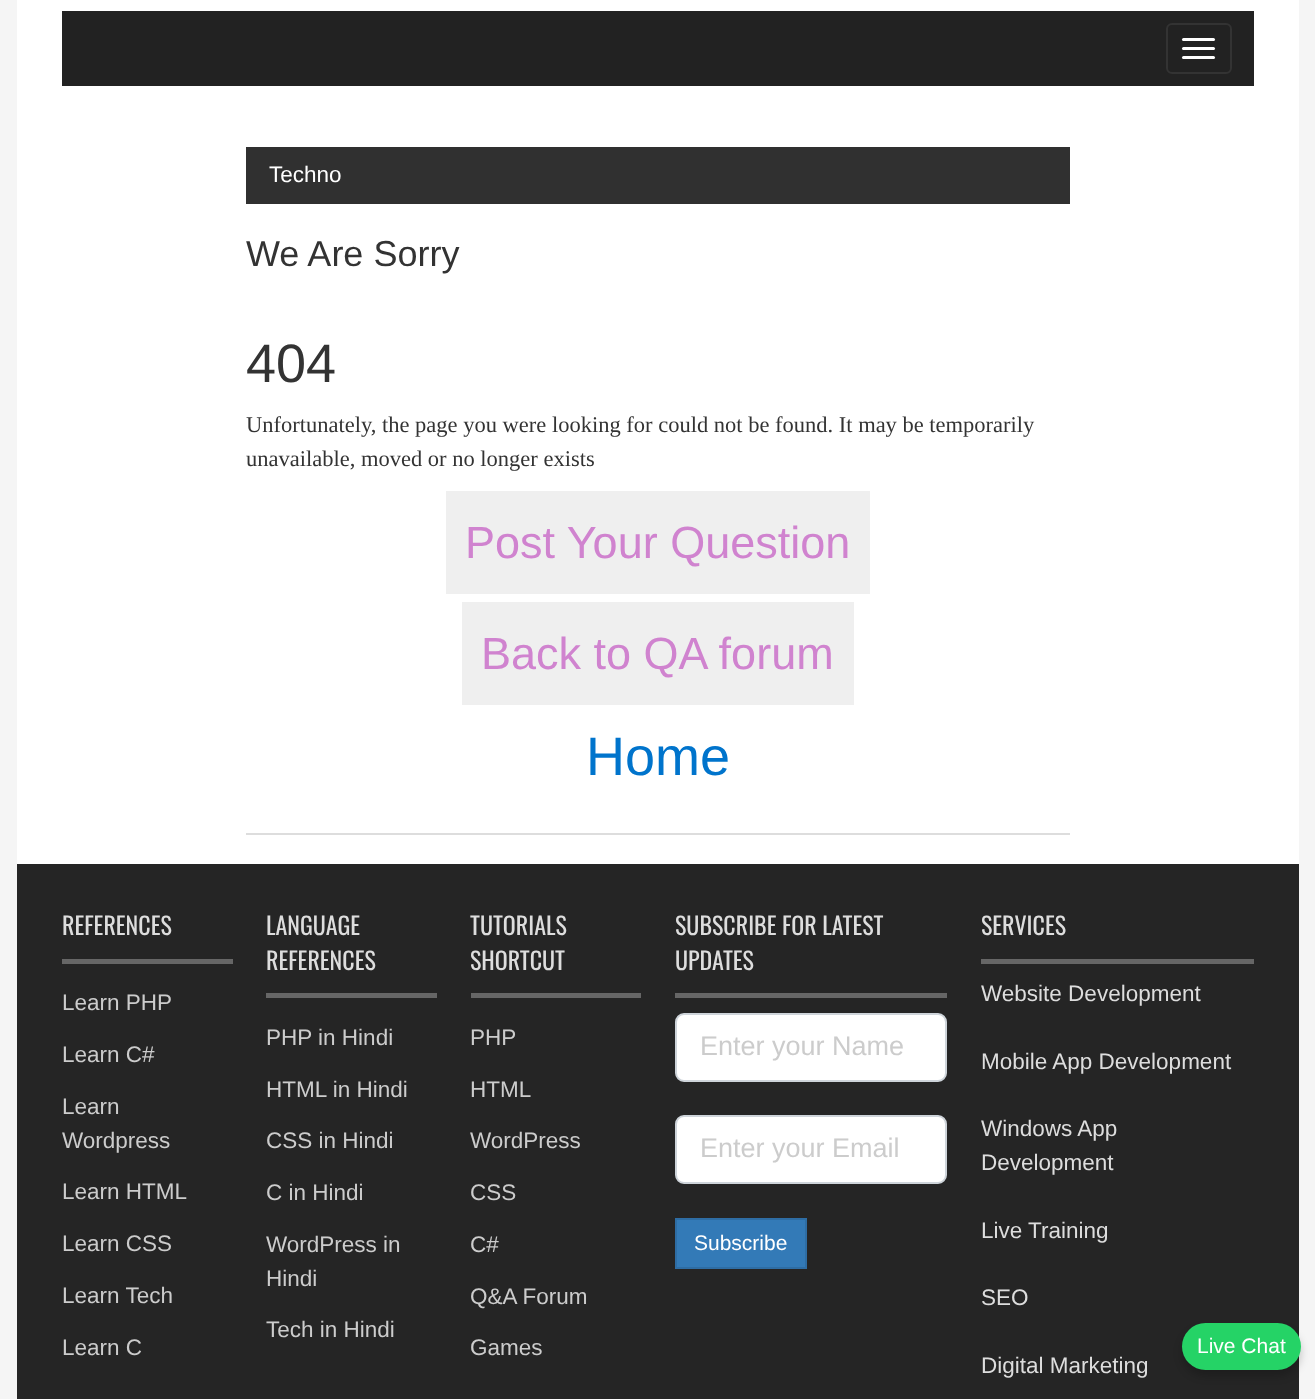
(async () => {
const canvas = document.querySelector("canvas")
canvas.width = 1315
canvas.height = 1399
const c = canvas.getContext("2d")
c.miterLimit = 4
c.fontKerning = "normal"
function T(s,x,y){c.fillText(s,x,y)}
function R(x,y,w,h){c.fillRect(x,y,w,h)}
function Q(x,y,w,h,r){c.beginPath();c.roundRect(x,y,w,h,r);c.fill()}
c.fillStyle="#f5f5f5"
R(0,0,1315,1399)
c.fillStyle="#fff"
R(17,0,1282,864)
c.fillStyle="#222"
R(62,11,1192,75)
c.beginPath()
c.roundRect(1167,24,64,49,5)
c.strokeStyle="#333"
c.lineWidth=2
c.stroke()
c.fillStyle="#fff"
Q(1182,38,33,3,1.5)
Q(1182,47,33,3,1.5)
Q(1182,56,33,3,1.5)
c.fillStyle="#303030"
R(246,147,824,57)
c.font="22.5px Liberation Sans"
c.fillStyle="#fff"
T("Techno",269,182)
c.font="36px Liberation Sans"
c.fillStyle="#333"
T("We Are Sorry",246,266)
c.fillStyle="#ddd"
R(246,833,824,2)
c.font="54px Liberation Sans"
c.fillStyle="#333"
T("404",246,382)
c.font="22.5px Liberation Serif"
T("Unfortunately, the page you were looking for could not be found. It may be temporarily",246,432)
T("unavailable, moved or no longer exists",246,466)
c.fillStyle="#efefef"
R(446,491,424,103)
c.font="45px Liberation Sans"
c.fillStyle="#d083cf"
T("Post Your Question",465,558)
c.fillStyle="#efefef"
R(462,602,392,103)
c.fillStyle="#d083cf"
T("Back to QA forum",481,669)
c.font="54px Liberation Sans"
c.fillStyle="#0074cc"
T("Home",586,775)
c.fillStyle="#252525"
R(17,864,1282,535)
c.fillStyle="#666"
R(62,959,171,5)
c.font="24px Oswald"
c.fillStyle="#ddd"
T("REFERENCES",62,935)
c.font="22.5px Liberation Sans"
c.fillStyle="#ccc"
T("Learn PHP",62,1010)
T("Learn C#",62,1062)
T("Learn",62,1114)
T("Wordpress",62,1148)
T("Learn HTML",62,1199)
T("Learn CSS",62,1251)
T("Learn Tech",62,1303)
T("Learn C",62,1355)
c.fillStyle="#666"
R(266,993,171,5)
c.font="24px Oswald"
c.fillStyle="#ddd"
T("LANGUAGE",266,935)
T("REFERENCES",266,970)
c.font="22.5px Liberation Sans"
c.fillStyle="#ccc"
T("PHP in Hindi",266,1045)
T("HTML in Hindi",266,1097)
T("CSS in Hindi",266,1148)
T("C in Hindi",266,1200)
T("WordPress in",266,1252)
T("Hindi",266,1286)
T("Tech in Hindi",266,1337)
c.fillStyle="#666"
R(471,993,170,5)
c.font="24px Oswald"
c.fillStyle="#ddd"
T("TUTORIALS",470,935)
T("SHORTCUT",470,970)
c.font="22.5px Liberation Sans"
c.fillStyle="#ccc"
T("PHP",470,1045)
T("HTML",470,1097)
T("WordPress",470,1148)
T("CSS",470,1200)
T("C#",470,1252)
T("Q&A Forum",470,1304)
T("Games",470,1355)
c.fillStyle="#666"
R(675,993,272,5)
c.font="24px Oswald"
c.fillStyle="#ddd"
T("SUBSCRIBE FOR LATEST",675,935)
T("UPDATES",675,970)
c.fillStyle="#fff"
c.beginPath()
c.roundRect(676,1014,270,67,8)
c.fill()
c.strokeStyle="#ced4da"
c.stroke()
c.font="27px Liberation Sans"
c.fillStyle="#ccc"
T("Enter your Name",700,1055)
c.fillStyle="#fff"
c.beginPath()
c.roundRect(676,1116,270,67,8)
c.fill()
c.stroke()
c.fillStyle="#ccc"
T("Enter your Email",700,1157)
c.fillStyle="#337ab7"
c.beginPath()
c.rect(676,1219,130,49)
c.fill()
c.strokeStyle="#2e6da4"
c.stroke()
c.font="21px Liberation Sans"
c.fillStyle="#fff"
T("Subscribe",694,1250)
c.fillStyle="#666"
R(981,959,273,5)
c.font="24px Oswald"
c.fillStyle="#ddd"
T("SERVICES",981,935)
c.font="22.5px Liberation Sans"
T("Website Development",981,1001)
T("Mobile App Development",981,1069)
T("Windows App",981,1136)
T("Development",981,1170)
T("Live Training",981,1238)
T("SEO",981,1305)
T("Digital Marketing",981,1373)
c.fillStyle="#00000033"
c.filter="blur(4.5px)"
c.beginPath()
c.roundRect(1182,1329,119,47,23.5)
c.fill()
c.filter="none"
c.fillStyle="#25d366"
Q(1182,1323,119,47,23.5)
c.font="21px Liberation Sans"
c.fillStyle="#fff"
T("Live Chat",1197,1353)
})()
